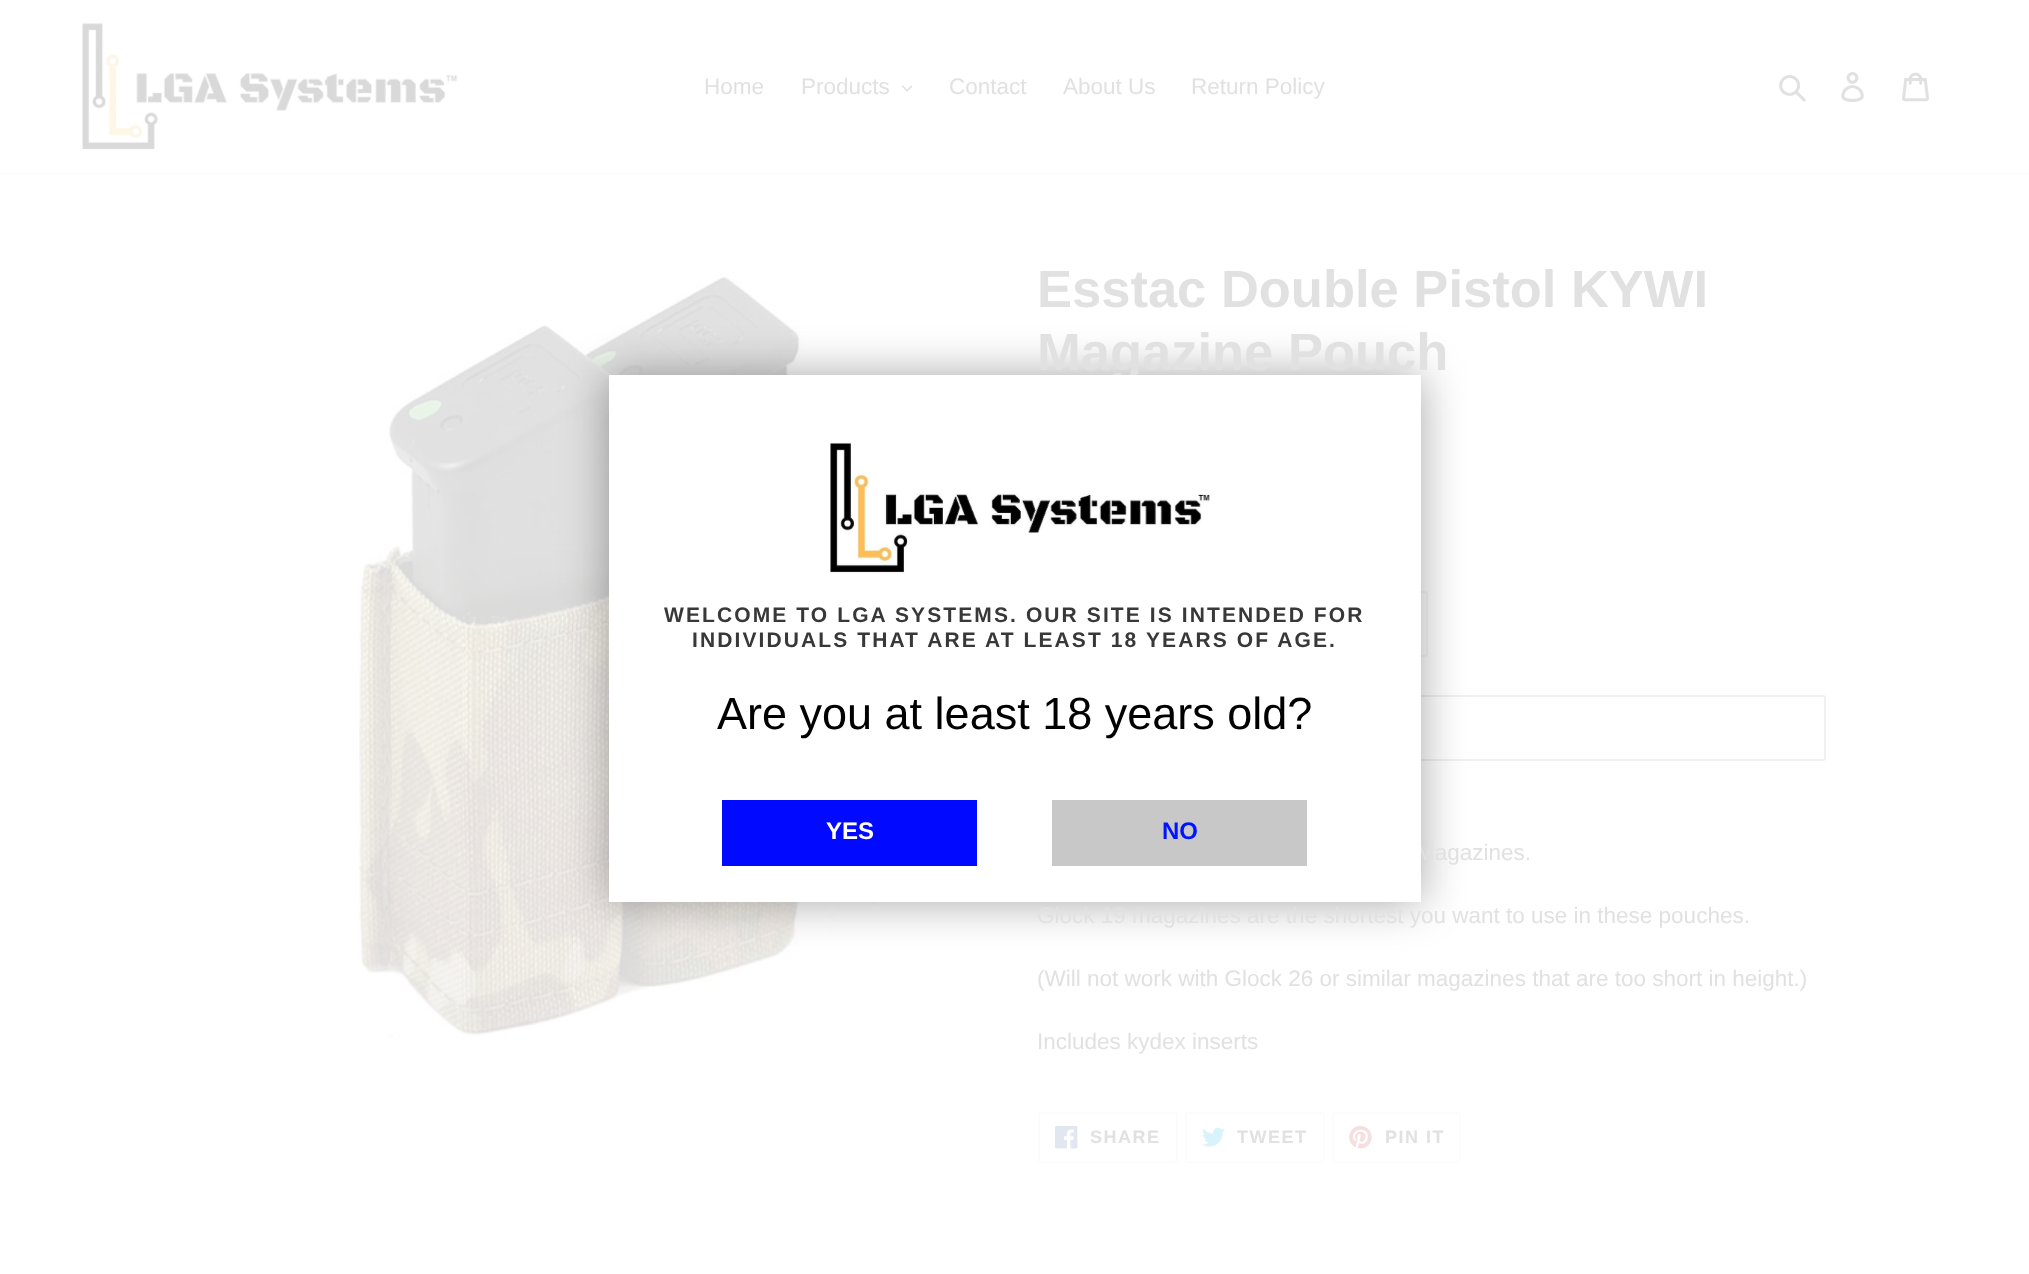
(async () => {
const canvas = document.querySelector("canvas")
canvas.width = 2029
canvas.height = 1274
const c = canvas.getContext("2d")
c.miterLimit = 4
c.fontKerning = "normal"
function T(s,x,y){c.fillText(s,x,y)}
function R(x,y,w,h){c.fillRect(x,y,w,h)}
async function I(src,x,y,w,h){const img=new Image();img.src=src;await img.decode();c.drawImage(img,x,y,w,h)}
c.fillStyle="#fff"
R(0,0,2029,1274)
c.fillStyle="#fcfcfc"
R(0,173,2029,2)
await I("1.png",82,22,376,128)
c.font="22.5px Liberation Sans"
c.fillStyle="#e1e1e1"
T("Home",704,94)
T("Products",801,94)
await I("2.png",902,85,10,7)
T("Contact",949,94)
T("About Us",1063,94)
T("Return Policy",1191,94)
await I("3.png",1779,75,27,27)
await I("4.png",1841,72,23,30)
await I("5.png",1902,72,27,30)
await I("7.png",345,268,531,772)
c.beginPath()
c.roundRect(1047,592,380,64,2)
c.strokeStyle="#f7f7f7"
c.lineWidth=2
c.stroke()
c.beginPath()
c.roundRect(1047,696,778,64,2)
c.strokeStyle="#f0f0f0"
c.stroke()
c.fillStyle="#00000059"
c.filter="blur(22.5px)"
c.beginPath()
c.rect(609,375,812,527)
c.fill()
c.filter="none"
c.font="bold 52.5px Liberation Sans"
c.fillStyle="#e1e1e1"
T("Magazine Pouch",1037,370)
c.font="22.5px Liberation Sans"
T("Magazines.",1416,860)
c.fillStyle="#fff"
R(609,375,812,527)
await I("6.png",830,442,380,132)
c.letterSpacing="2.1px"
c.font="bold 21px Liberation Sans"
c.fillStyle="#383838"
T("WELCOME TO LGA SYSTEMS. OUR SITE IS INTENDED FOR",664,622)
T("INDIVIDUALS THAT ARE AT LEAST 18 YEARS OF AGE.",692,647)
c.letterSpacing="0px"
c.font="45px Liberation Sans"
c.fillStyle="#000"
T("Are you at least 18 years old?",717,729)
c.fillStyle="#0109fe"
R(722,800,255,66)
c.font="bold 24px Liberation Sans"
c.fillStyle="#fff"
T("YES",826,839)
c.fillStyle="#c9c8c8"
R(1052,800,255,66)
c.fillStyle="#0015ff"
T("NO",1162,839)
c.font="bold 52.5px Liberation Sans"
c.fillStyle="#e1e1e1"
T("Esstac Double Pistol KYWI",1037,307)
c.font="22.5px Liberation Sans"
T("Glock 19 magazines are the shortest you want to use in these pouches.",1037,923)
T("(Will not work with Glock 26 or similar magazines that are too short in height.)",1037,986)
T("Includes kydex inserts",1037,1049)
c.beginPath()
c.roundRect(1039,1113,138,49,2)
c.strokeStyle="#fcfcfc"
c.stroke()
await I("8.png",1055,1126,23,23)
c.letterSpacing="1.5px"
c.font="bold 18px Liberation Sans"
T("SHARE",1090,1143)
c.beginPath()
c.roundRect(1186,1113,138,49,2)
c.stroke()
await I("9.png",1202,1127,23,20)
T("TWEET",1237,1143)
c.beginPath()
c.roundRect(1333,1113,127,49,2)
c.stroke()
await I("10.png",1349,1126,23,23)
T("PIN IT",1385,1143)
})()
